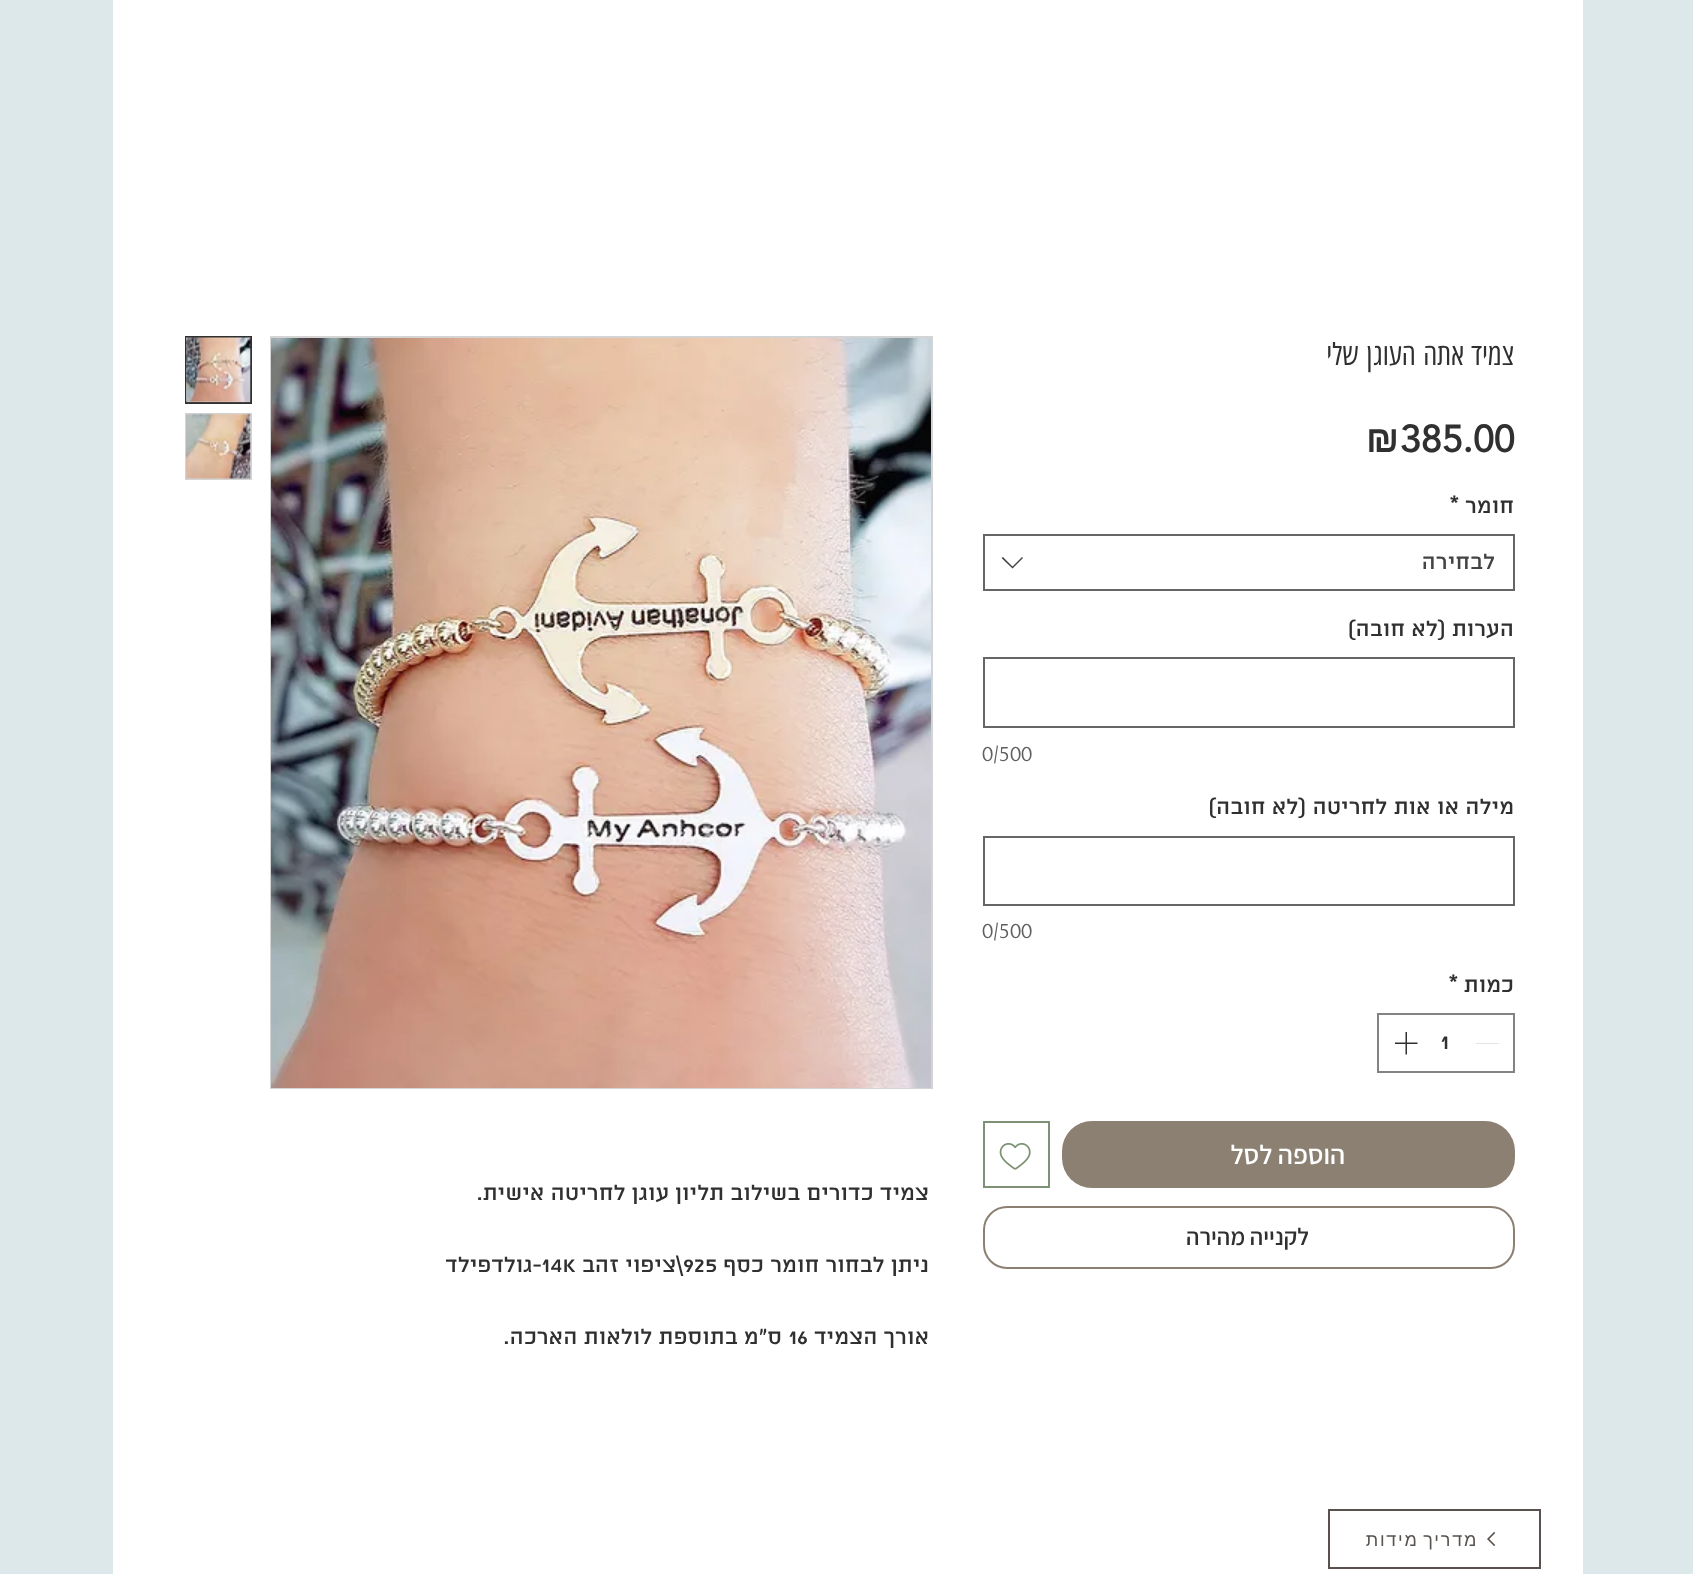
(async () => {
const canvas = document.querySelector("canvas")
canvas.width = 1693
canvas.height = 1574
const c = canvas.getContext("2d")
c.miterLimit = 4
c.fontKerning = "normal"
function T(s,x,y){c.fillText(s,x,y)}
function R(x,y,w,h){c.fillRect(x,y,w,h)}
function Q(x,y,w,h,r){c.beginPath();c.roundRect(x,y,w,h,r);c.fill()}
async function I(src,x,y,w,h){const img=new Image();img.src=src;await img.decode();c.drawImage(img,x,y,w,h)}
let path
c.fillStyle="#dde8eb"
R(0,0,1693,1574)
c.fillStyle="#fff"
R(113,0,1470,1574)
c.direction="rtl"
c.font="30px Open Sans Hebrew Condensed"
c.fillStyle="#303030"
T("צמיד אתה העוגן שלי",1514,365)
c.direction="ltr"
c.font="bold 37.5px 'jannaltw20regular'"
T("385.00",1400,452)
c.font="bold 37.5px Liberation Sans"
T("₪",1366,452)
c.direction="rtl"
c.font="500 24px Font"
T("חומר",1514,513)
c.direction="ltr"
T("*",1450,513)
c.strokeStyle="#666"
c.lineWidth=2
c.strokeRect(984,535,530,55)
c.direction="rtl"
c.fillStyle="#444"
T("לבחירה",1495,569)
path = new Path2D("M1022 557l1 1l-10.5 10.5l-11-10.5l1.5-1l9.5 9.5z")
c.fill(path,"evenodd")
c.fillStyle="#303030"
T("הערות (לא חובה)",1514,636)
c.strokeRect(984,658,530,69)
c.direction="ltr"
c.font="21px Overlock"
c.fillStyle="#606060"
T("0/500",982,761)
c.direction="rtl"
c.font="500 24px Font"
c.fillStyle="#303030"
T("מילה או אות לחריטה (לא חובה)",1514,814)
c.strokeRect(984,837,530,68)
c.direction="ltr"
c.font="21px Overlock"
c.fillStyle="#606060"
T("0/500",982,938)
c.direction="rtl"
c.font="500 24px Font"
c.fillStyle="#303030"
T("כמות",1514,992)
c.direction="ltr"
T("*",1449,992)
c.strokeStyle="#838383"
c.strokeRect(1378,1014,136,58)
c.fillStyle="#e3e3e3"
R(1476,1043,23,1)
c.fillStyle="#303030"
T("1",1441,1049)
await I("1.png",1395,1032,23,23)
c.fillStyle="#8b8072"
Q(1062,1121,453,67,30)
c.direction="rtl"
c.font="600 27px Assistant"
c.fillStyle="#fff"
T("הוספה לסל",1345,1164)
c.strokeStyle="#7d9174"
c.strokeRect(984,1122,65,65)
await I("2.png",999,1143,32,27)
c.beginPath()
c.roundRect(984,1207,530,61,23)
c.strokeStyle="#8b8072"
c.stroke()
c.font="600 24px Assistant"
c.fillStyle="#303030"
T("לקנייה מהירה",1309,1245)
c.strokeStyle="#d4d4d4"
c.strokeRect(271,337,661,751)
await I("3.png",271,338,660,750)
c.fillStyle="#d4d4d4"
R(187,401,63,1)
c.strokeStyle="#303030"
c.strokeRect(186,337,65,66)
await I("4.png",186,337,65,66)
R(185,413,67,67)
await I("5.png",186,413,65,66)
c.font="500 24px Font"
c.fillStyle="#303030"
T("צמיד כדורים בשילוב תליון עוגן לחריטה אישית.",929,1200)
T("ניתן לבחור חומר כסף",929,1272)
T("\\ציפוי זהב",683,1272)
c.direction="ltr"
T("925",683,1272)
T("14K",542,1272)
c.save()
c.beginPath()
c.rect(446,1176,484,252)
c.clip()
c.direction="rtl"
T("-גולדפילד",542,1272)
c.restore()
c.direction="rtl"
T("אורך הצמיד",929,1344)
c.direction="ltr"
T("16",789,1344)
c.direction="rtl"
T("ס\"מ בתוספת לולאות הארכה.",782,1344)
c.strokeStyle="#59514d"
c.strokeRect(1329,1510,211,58)
await I("6.png",1487,1531,9,16)
c.letterSpacing="1.75px"
c.wordSpacing="-2px"
c.font="18px Liberation Sans"
c.fillStyle="#59514d"
T("מדריך מידות",1478,1546)
})()
